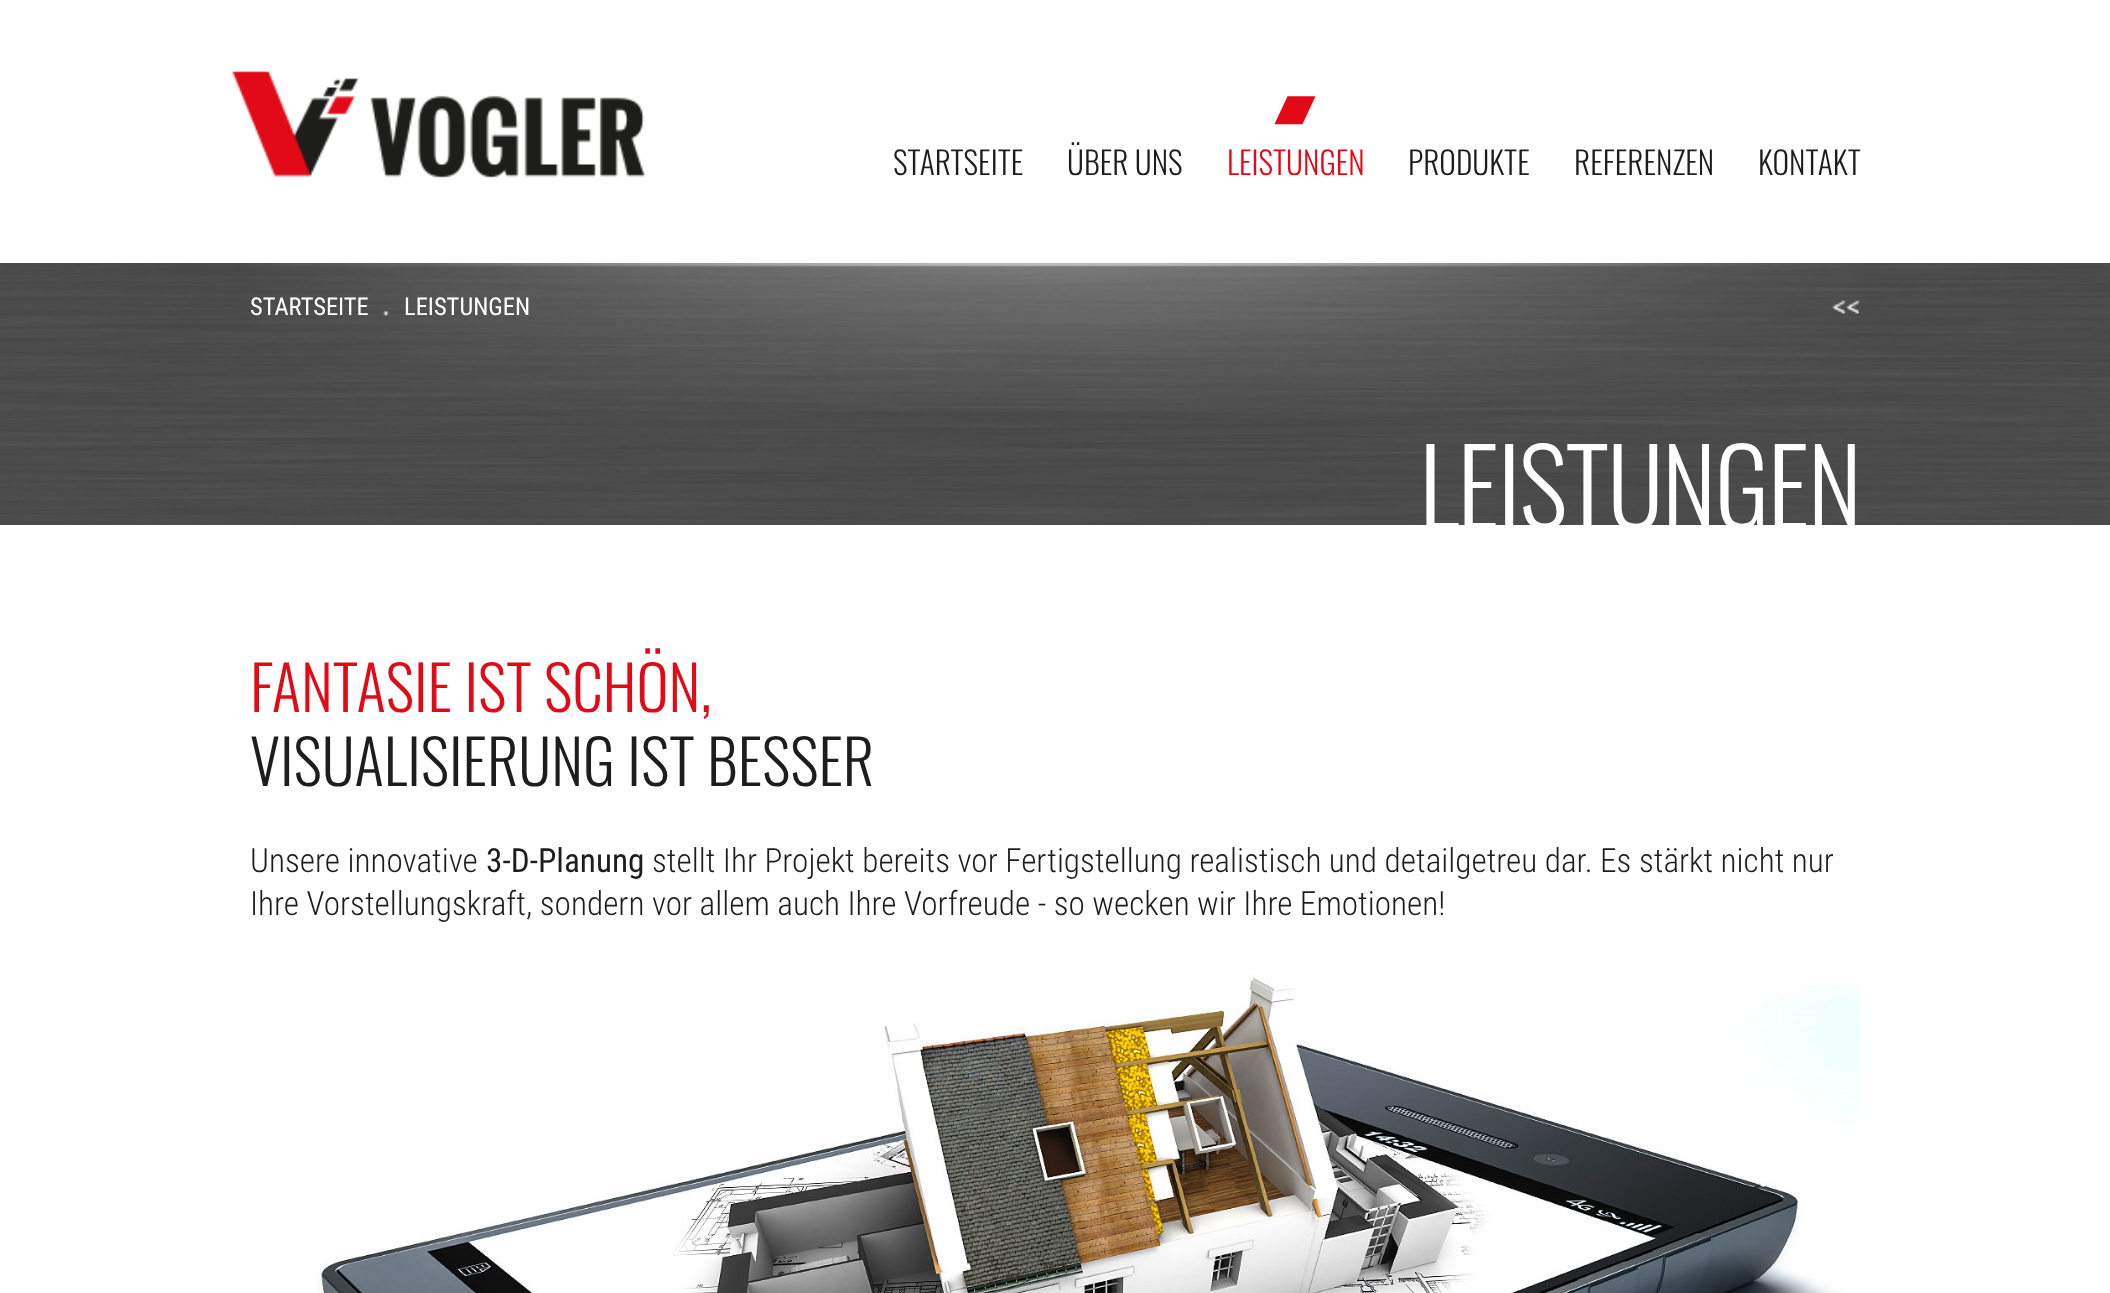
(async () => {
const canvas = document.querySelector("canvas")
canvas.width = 2110
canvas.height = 1293
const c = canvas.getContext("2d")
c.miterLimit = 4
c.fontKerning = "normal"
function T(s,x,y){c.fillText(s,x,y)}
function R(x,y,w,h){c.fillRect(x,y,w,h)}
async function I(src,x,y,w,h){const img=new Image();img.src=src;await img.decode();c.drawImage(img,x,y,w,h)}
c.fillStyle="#fff"
R(0,0,2110,1293)
await I("1.png",0,263,2110,262)
await I("2.png",232,71,413,107)
c.font="300 31.5px Oswald"
c.fillStyle="#1d1d1d"
T("STARTSEITE",893,175)
T("ÜBER UNS",1067,175)
await I("3.png",1274,96,42,29)
c.fillStyle="#e20a17"
T("LEISTUNGEN",1227,175)
c.fillStyle="#1d1d1d"
T("PRODUKTE",1408,175)
T("REFERENZEN",1574,175)
T("KONTAKT",1758,175)
await I("6.png",248,263,1615,149)
c.font="24.5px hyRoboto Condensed"
c.fillStyle="#fff"
T("STARTSEITE",250,315)
await I("4.png",383,311,6,5)
T("LEISTUNGEN",404,315)
await I("5.png",1832,300,29,14)
c.letterSpacing="-1.75px"
c.font="300 105px Oswald"
T("LEISTUNGEN",1419,529)
c.letterSpacing="0px"
c.font="300 61.25px Oswald"
c.fillStyle="#e20a17"
T("FANTASIE IST SCHÖN,",250,712)
c.fillStyle="#1d1d1d"
T("VISUALISIERUNG IST BESSER",250,786)
c.font="300 33.25px Roboto Condensed"
T("Unsere innovative",250,872)
c.font="33.25px hyRoboto Condensed"
T("3-D-Planung",486,872)
c.font="300 33.25px Roboto Condensed"
T("stellt Ihr Projekt bereits vor Fertigstellung realistisch und detailgetreu dar. Es stärkt nicht nur",652,872)
T("Ihre Vorstellungskraft, sondern vor allem auch Ihre Vorfreude - so wecken wir Ihre Emotionen!",250,915)
await I("7.png",317,974,1544,319)
})()
